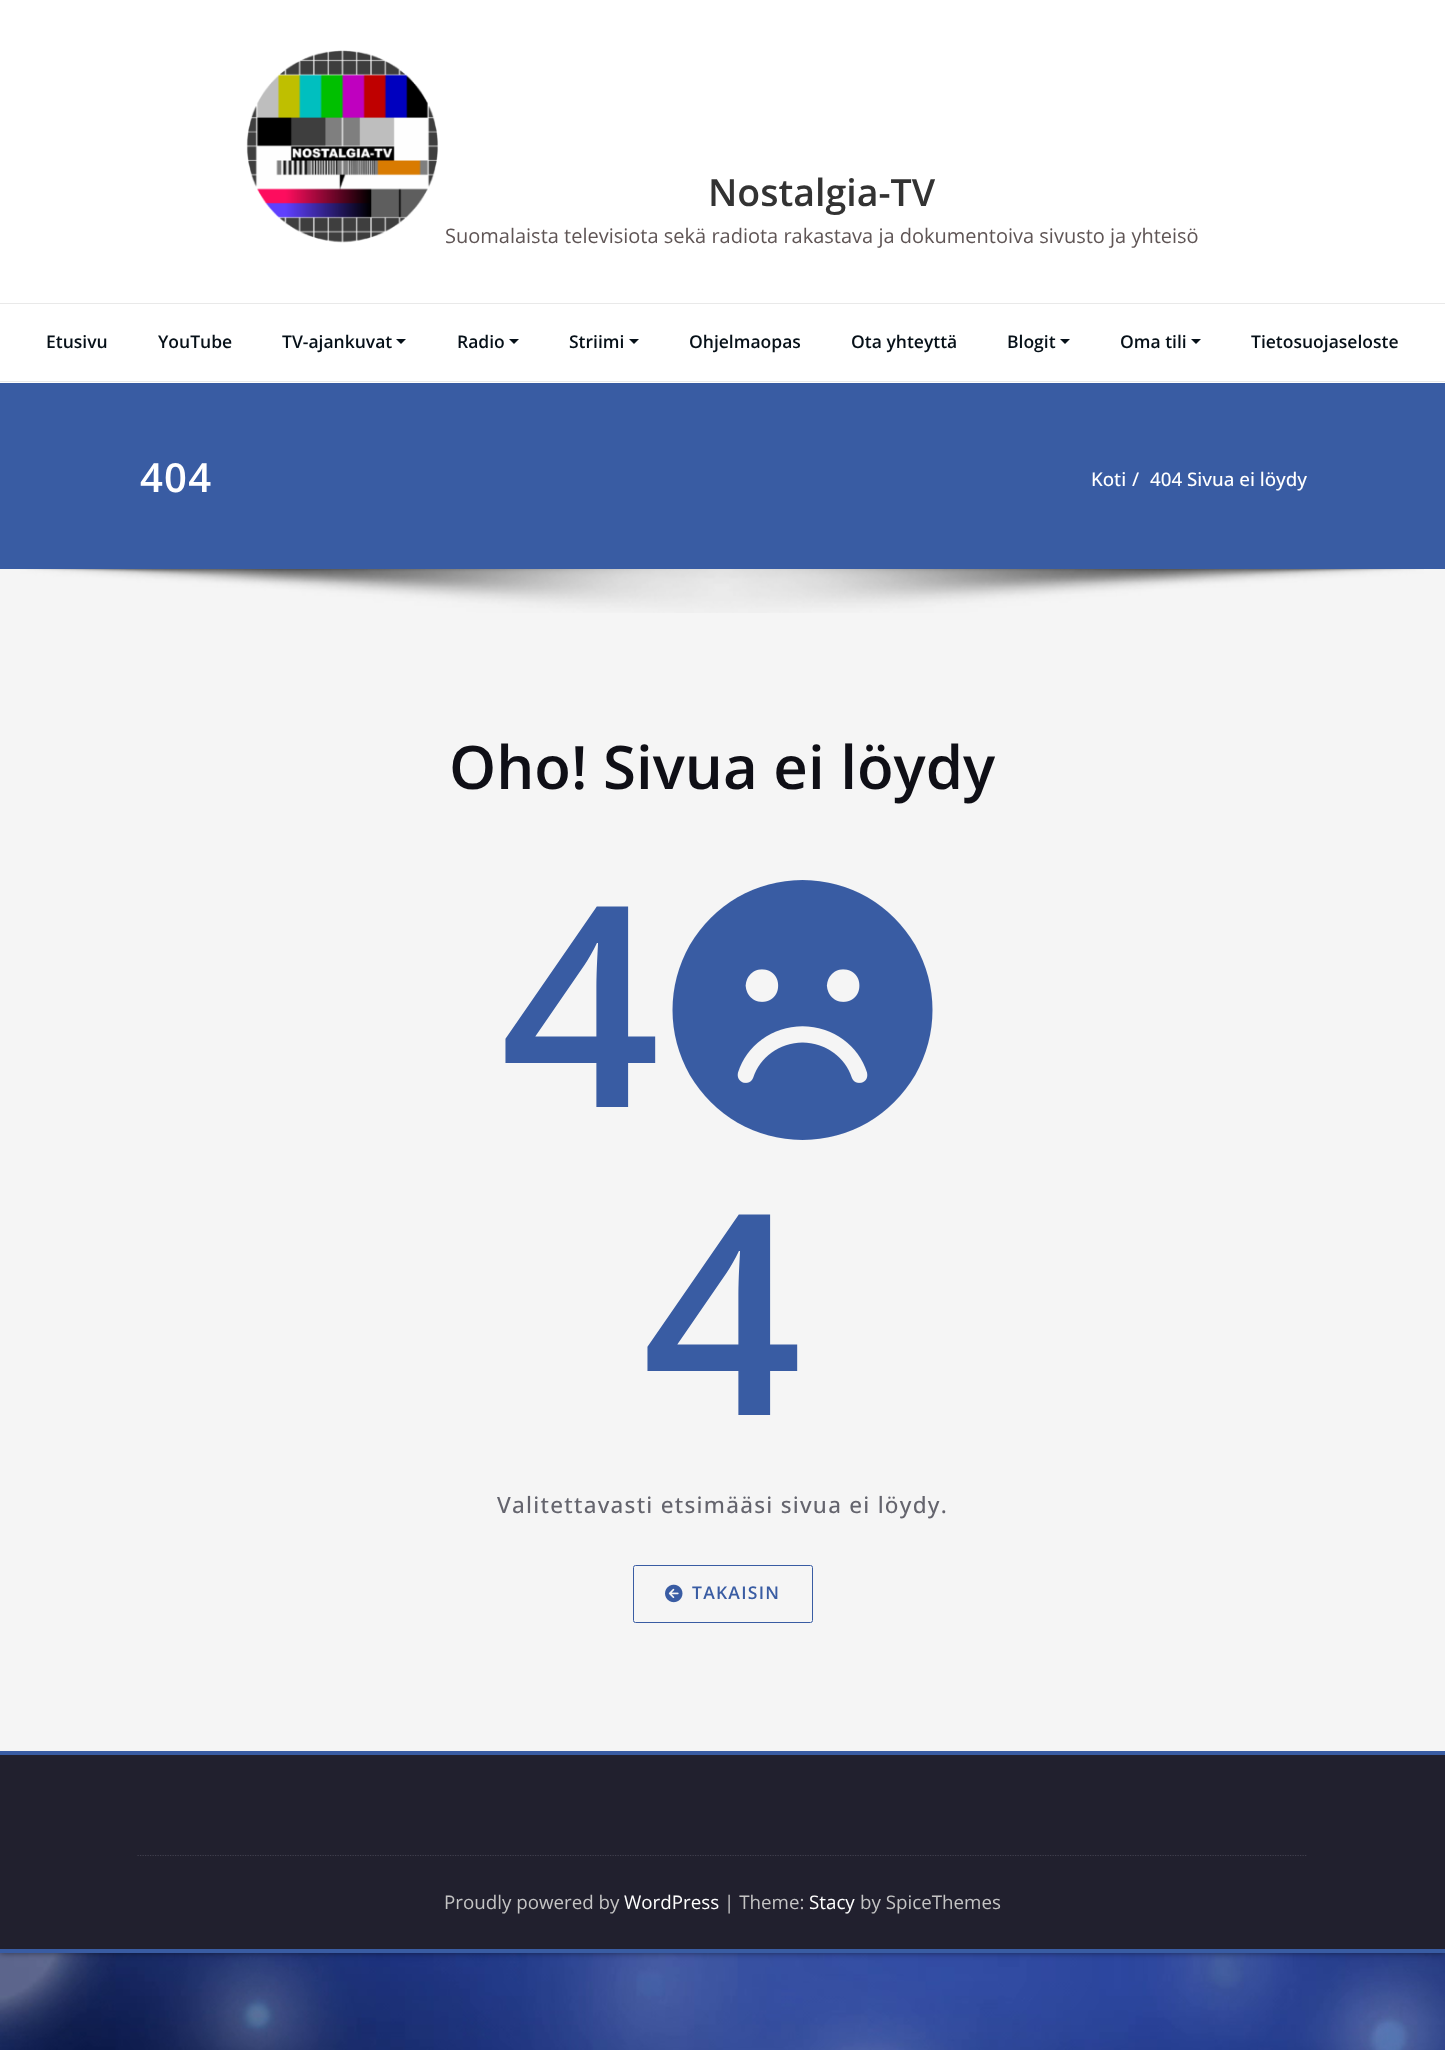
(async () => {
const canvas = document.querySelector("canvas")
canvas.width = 1445
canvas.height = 2050
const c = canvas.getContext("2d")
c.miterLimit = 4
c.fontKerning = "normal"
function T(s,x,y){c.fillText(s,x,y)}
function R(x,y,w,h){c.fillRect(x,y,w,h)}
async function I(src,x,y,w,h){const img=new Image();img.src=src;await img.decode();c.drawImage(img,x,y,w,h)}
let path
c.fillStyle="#fff"
R(0,0,1445,2050)
await I("1.png",0,1953,1445,97)
c.fillStyle="#00000080"
c.filter="blur(3px)"
c.beginPath()
c.rect(0,0,1445,1953)
c.fill()
c.filter="none"
c.fillStyle="#f5f5f5"
R(0,569,1445,1182)
c.fillStyle="#fff"
R(0,0,1445,383)
await I("2.png",246,50,193,193)
c.font="600 37.5px Open Sans"
c.fillStyle="#333"
T("Nostalgia-TV",708,206)
c.font="20px Open Sans"
c.fillStyle="#5f5555"
T("Suomalaista televisiota sekä radiota rakastava ja dokumentoiva sivusto ja yhteisö",445,243)
c.fillStyle="#e9e9e9"
R(0,303,1445,1)
R(0,381,1445,1)
c.font="600 17.5px Open Sans"
c.fillStyle="#061018"
T("Etusivu",46,348)
T("YouTube",158,348)
T("TV-ajankuvat",282,348)
path = new Path2D("M396 339h10l-5 5z")
c.fill(path)
T("Radio",457,348)
path = new Path2D("M509 339h10l-5 5z")
c.fill(path)
T("Striimi",569,348)
path = new Path2D("M629 339h10l-5 5z")
c.fill(path)
T("Ohjelmaopas",689,348)
T("Ota yhteyttä",851,348)
T("Blogit",1007,348)
path = new Path2D("M1060 339h10l-5 5z")
c.fill(path)
T("Oma tili",1120,348)
path = new Path2D("M1191 339h10l-5 5z")
c.fill(path)
T("Tietosuojaseloste",1251,348)
c.fillStyle="#395ca3"
R(0,383,1445,186)
c.letterSpacing="1.25px"
c.font="600 40px Open Sans"
c.fillStyle="#fff"
T("404",140,492)
c.letterSpacing="0px"
c.font="500 18.75px Open Sans"
T("Koti",1091,486)
T("/",1132,486)
T("404 Sivua ei löydy",1150,486)
await I("3.png",20,569,1404,44)
c.font="600 60px Open Sans"
c.fillStyle="#0f0f16"
T("Oho! Sivua ei löydy",449,789)
c.font="600 280px Open Sans"
c.fillStyle="#395ca3"
T("4",500,1107)
await I("4.png",672,880,261,260)
T("4",642,1415)
c.letterSpacing="1.25px"
c.font="500 22.5px Open Sans"
c.fillStyle="#64646d"
T("Valitettavasti etsimääsi sivua ei löydy.",497,1513)
c.beginPath()
c.roundRect(633.5,1565.5,179,57,2)
c.strokeStyle="#395ca3"
c.stroke()
await I("5.png",665,1584,18,19)
c.font="600 17.5px Open Sans"
c.fillStyle="#395ca3"
T("TAKAISIN",692,1599)
c.fillStyle="#21202e"
R(0,1755,1445,194)
c.fillStyle="#395ca3"
R(0,1751,1445,4)
R(0,1949,1445,4)
path = new Path2D("M137.5 1855.5h1170")
c.strokeStyle="#403f4e"
c.lineWidth=1.2
c.setLineDash([1.25,1.25])
c.stroke(path)
c.letterSpacing="0px"
c.font="18.75px Open Sans"
c.fillStyle="#c4c4c4"
T("Proudly powered by",444,1909)
c.fillStyle="#fff"
T("WordPress",624,1909)
c.fillStyle="#c4c4c4"
T("| Theme:",724,1909)
c.fillStyle="#fff"
T("Stacy",809,1909)
c.fillStyle="#c4c4c4"
T("by SpiceThemes",860,1909)
})()
